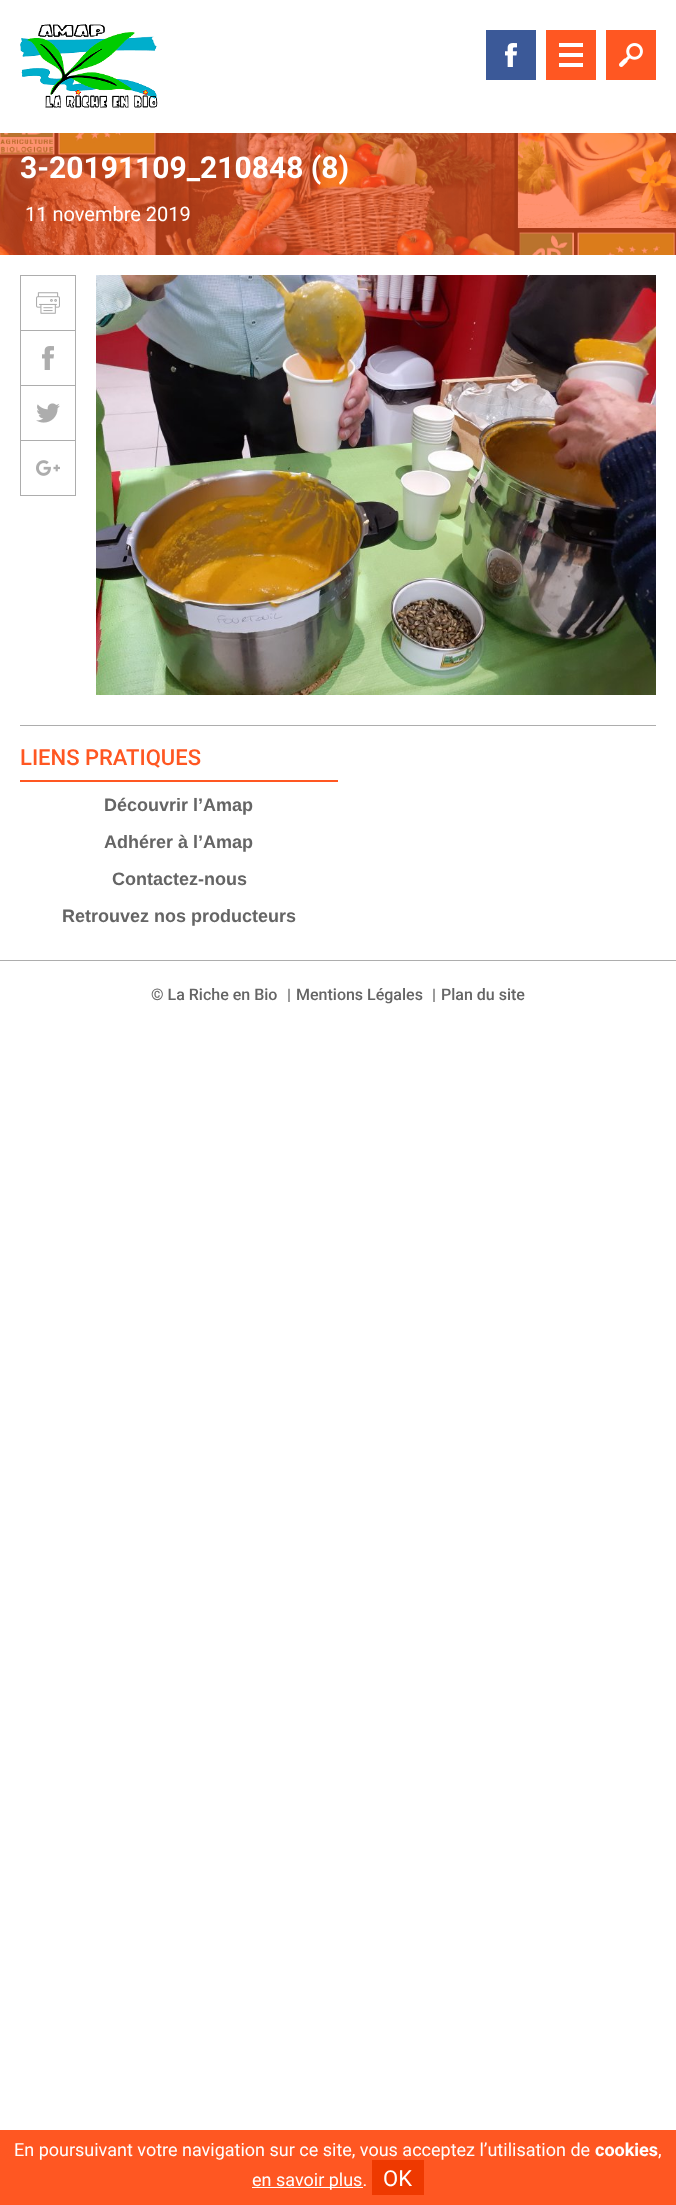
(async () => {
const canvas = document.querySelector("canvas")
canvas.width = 676
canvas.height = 2205
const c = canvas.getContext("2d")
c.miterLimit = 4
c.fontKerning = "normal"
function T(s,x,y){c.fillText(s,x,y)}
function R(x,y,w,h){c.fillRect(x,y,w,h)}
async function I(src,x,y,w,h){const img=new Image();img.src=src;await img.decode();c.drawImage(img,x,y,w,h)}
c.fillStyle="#fff"
R(0,0,676,2205)
await I("1.png",20,24,138,84)
c.fillStyle="#3b5998"
R(486,30,50,50)
await I("2.png",505,43,12,24)
c.fillStyle="#ff5722"
R(546,30,50,50)
c.fillStyle="#fff"
R(559,43,24,4)
R(559,53,24,4)
R(559,63,24,4)
c.fillStyle="#ff5722"
R(606,30,50,50)
await I("3.png",619,43,24,24)
await I("4.png",0,133,676,122)
c.font="bold 30px Roboto"
c.fillStyle="#fff"
T("3-20191109_210848 (8)",20,178)
c.font="20px Roboto"
T("11 novembre 2019",25,221)
c.strokeStyle="#adadad"
c.strokeRect(20.5,275.5,55,55)
await I("5.png",36,292,24,22)
c.fillStyle="#adadad"
R(75,331,1,165)
R(20,385,56,1)
R(20,331,1,55)
await I("6.png",42,346,12,24)
R(20,440,56,1)
R(20,386,1,55)
await I("7.png",36,403,24,20)
R(20,495,56,1)
R(20,441,1,55)
await I("8.png",36,460,24,16)
await I("9.png",96,275,560,420)
R(20,725,636,1)
c.fillStyle="#ff5722"
R(20,780,318,2)
c.font="500 22px Roboto"
T("LIENS PRATIQUES",20,765)
c.font="bold 18px Liberation Sans"
c.fillStyle="#656565"
T("Découvrir l’Amap",104,811)
T("Adhérer à l’Amap",104,848)
T("Contactez-nous",112,885)
T("Retrouvez nos producteurs",62,922)
c.fillStyle="#adadad"
R(0,960,676,1)
c.font="500 16px Roboto"
c.fillStyle="#656565"
T("© La Riche en Bio",151,1000)
T("|",287,1000)
T("Mentions Légales",296,1000)
T("|",432,1000)
T("Plan du site",441,1000)
c.fillStyle="#ff5722"
R(0,2130,676,75)
c.font="18px Roboto"
c.fillStyle="#fff"
T("En poursuivant votre navigation sur ce site, vous acceptez l’utilisation de",14,2156)
c.font="bold 18px Roboto"
T("cookies",595,2156)
c.font="18px Roboto"
T(",",658,2156)
R(252,2187,111,1)
T("en savoir plus.",252,2186)
c.fillStyle="#ee3900"
R(372,2160,52,35)
c.font="22px Roboto"
c.fillStyle="#fff"
T("OK",383,2186)
})()
